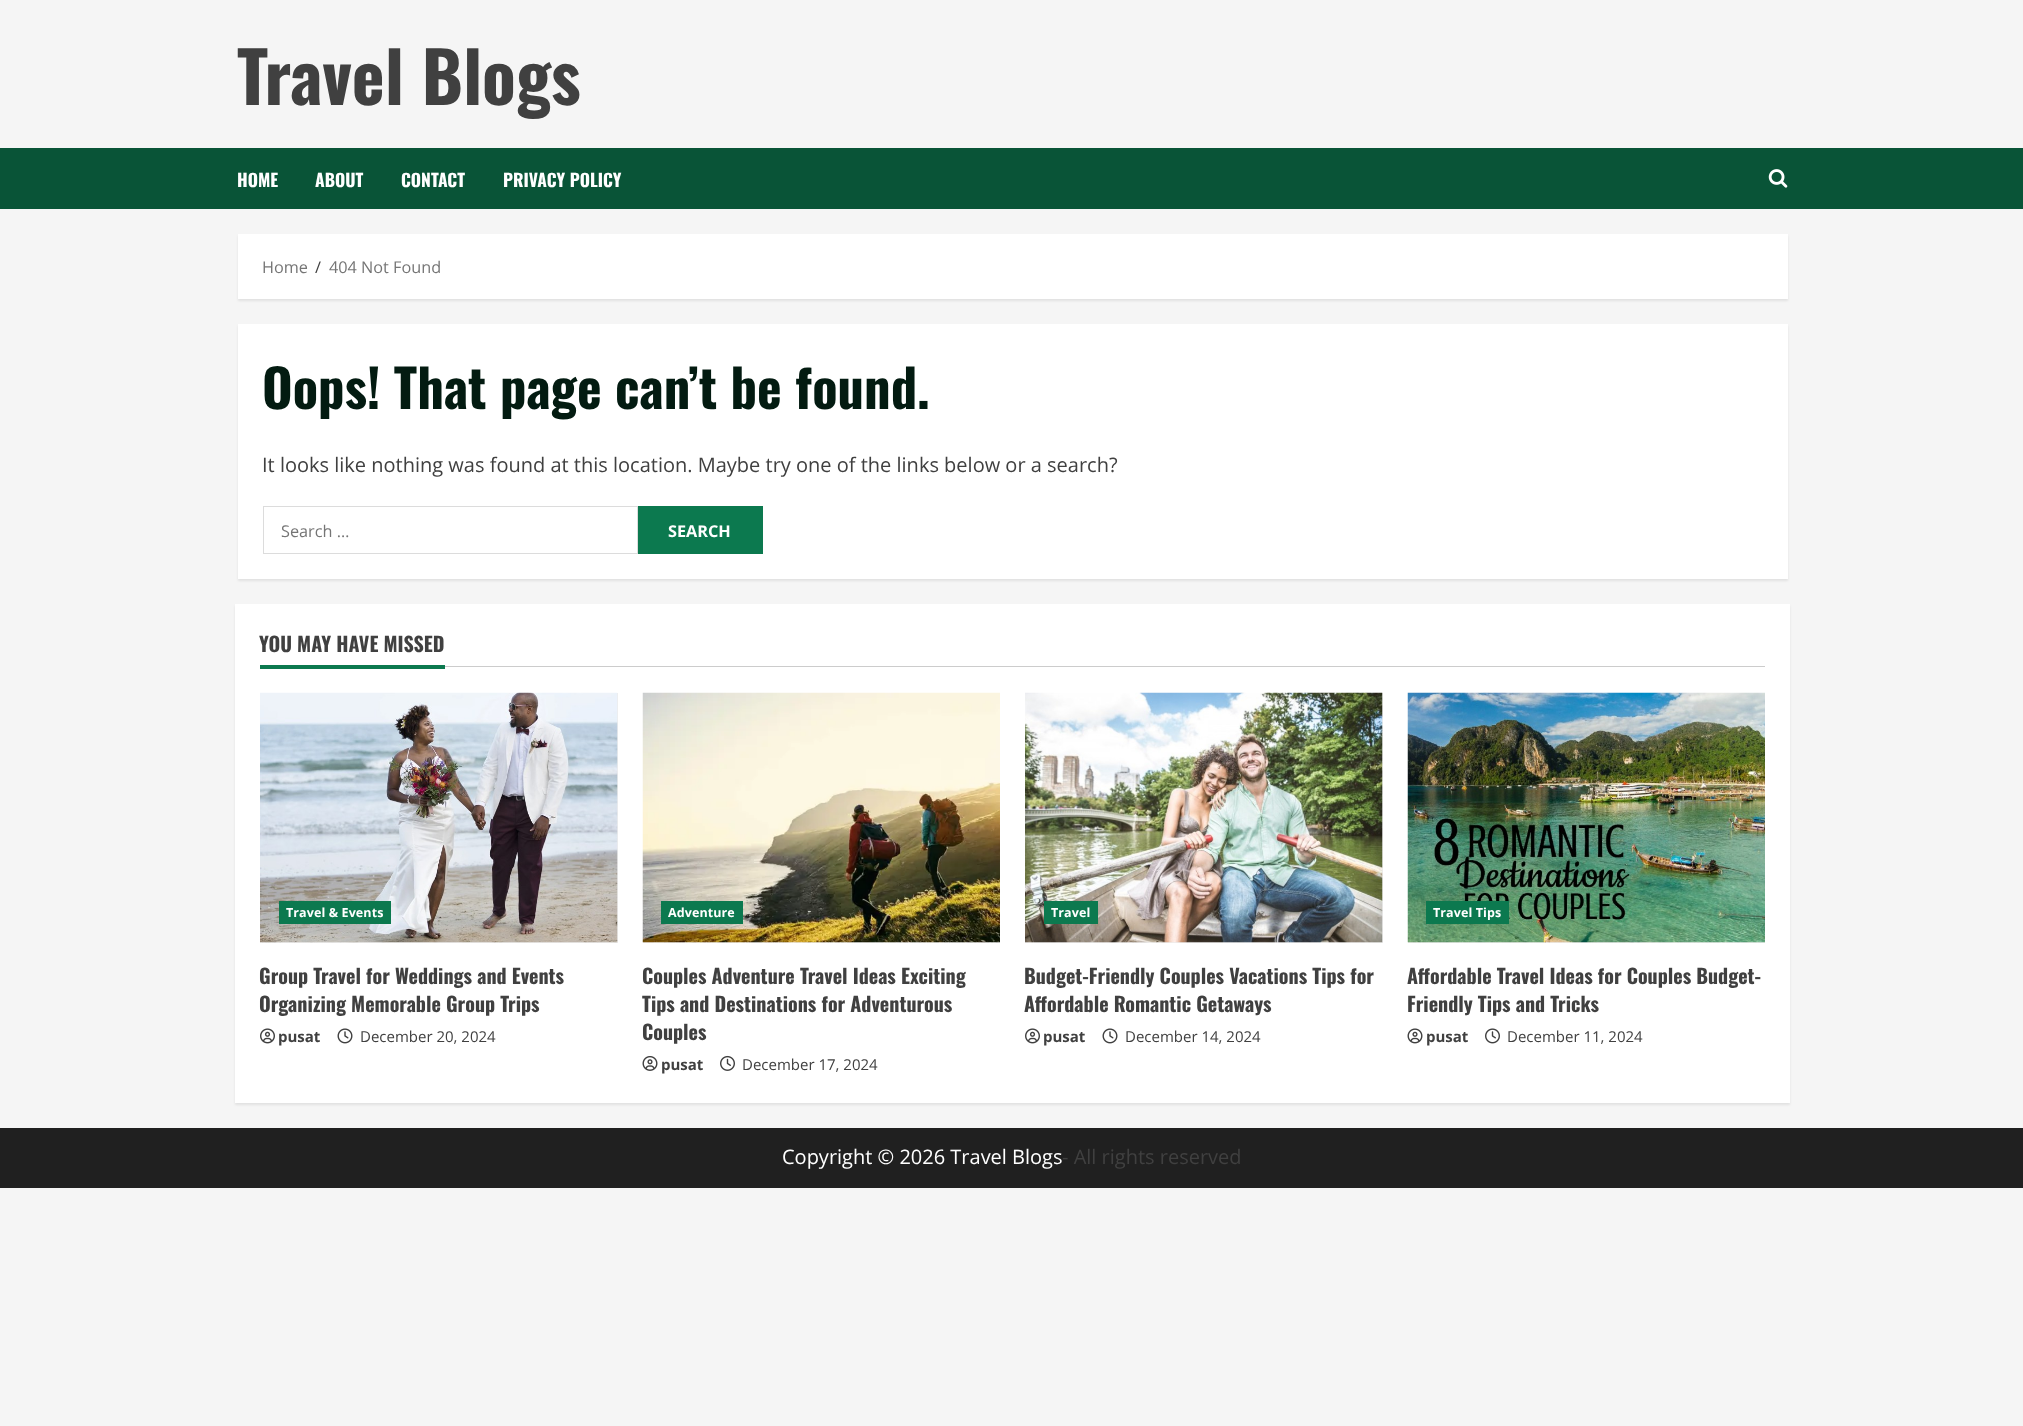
(async () => {
const canvas = document.querySelector("canvas")
canvas.width = 2023
canvas.height = 1426
const c = canvas.getContext("2d")
c.miterLimit = 4
c.fontKerning = "normal"
function T(s,x,y){c.fillText(s,x,y)}
function R(x,y,w,h){c.fillRect(x,y,w,h)}
async function I(src,x,y,w,h){const img=new Image();img.src=src;await img.decode();c.drawImage(img,x,y,w,h)}
c.fillStyle="#f5f5f5"
R(0,0,2023,1426)
c.font="bold 70px Oswald"
c.fillStyle="#404040"
T("Travel Blogs",237,105)
c.fillStyle="#095437"
R(0,148,2023,61)
c.font="bold 17.5px Oswald"
c.fillStyle="#fff"
T("HOME",237,187)
T("ABOUT",315,187)
T("CONTACT",401,187)
T("PRIVACY POLICY",503,187)
await I("1.png",1768,169,20,19)
c.fillStyle="#00000014"
c.filter="blur(1px)"
c.beginPath()
c.rect(238,236,1550,65)
c.fill()
c.filter="none"
c.fillStyle="#fff"
R(238,234,1550,65)
c.font="16.25px Open Sans"
c.fillStyle="#757575"
T("Home",262,273)
c.fillStyle="#404040"
T("/",315,273)
c.fillStyle="#757575"
T("404 Not Found",329,273)
c.fillStyle="#00000014"
c.filter="blur(1px)"
c.beginPath()
c.rect(238,326,1550,255)
c.fill()
c.filter="none"
c.fillStyle="#fff"
R(238,324,1550,255)
c.font="bold 52.5px Oswald"
c.fillStyle="#031b11"
T("Oops! That page can’t be found.",262,409)
c.font="20px Open Sans"
c.fillStyle="#404040"
T("It looks like nothing was found at this location. Maybe try one of the links below or a search?",262,472)
c.strokeStyle="#dcdcdc"
c.strokeRect(263.5,506.5,374,47)
c.font="16.25px Open Sans"
c.fillStyle="#757575"
T("Search …",281,537)
c.fillStyle="#0c794f"
R(638,506,125,48)
c.font="bold 16.25px Open Sans"
c.fillStyle="#fff"
T("SEARCH",668,537)
c.fillStyle="#00000014"
c.filter="blur(1px)"
c.beginPath()
c.rect(235,606,1555,499)
c.fill()
c.filter="none"
c.fillStyle="#fff"
R(235,604,1555,499)
c.fillStyle="#ccc"
R(445,666,1320,1)
c.font="bold 20px Oswald"
c.fillStyle="#404040"
T("YOU MAY HAVE MISSED",259,652)
c.fillStyle="#0c794f"
R(260,665,185,4)
c.fillStyle="#ececec"
R(260,693,358,250)
await I("2.png",260,692,358,251)
c.fillStyle="#0c794f"
R(279,901,112,23)
c.letterSpacing="0.1px"
c.font="bold 12.5px Open Sans"
c.fillStyle="#fff"
T("Travel & Events",286,917)
c.letterSpacing="0px"
c.font="bold 20px Oswald"
c.fillStyle="#404040"
T("Group Travel for Weddings and Events",259,984)
T("Organizing Memorable Group Trips",259,1012)
await I("3.png",260,1028,15,16)
c.font="bold 15px Open Sans"
T("pusat",278,1042)
await I("4.png",337,1028,16,16)
c.font="15px Open Sans"
T("December 20, 2024",360,1042)
c.fillStyle="#ececec"
R(643,942,357,1)
await I("5.png",642,692,358,251)
c.fillStyle="#0c794f"
R(661,901,82,23)
c.letterSpacing="0.1px"
c.font="bold 12.5px Open Sans"
c.fillStyle="#fff"
T("Adventure",668,917)
c.letterSpacing="0px"
c.font="bold 20px Oswald"
c.fillStyle="#404040"
T("Couples Adventure Travel Ideas Exciting",642,984)
T("Tips and Destinations for Adventurous",642,1012)
T("Couples",642,1040)
await I("6.png",642,1056,16,15)
c.font="bold 15px Open Sans"
T("pusat",661,1070)
await I("7.png",720,1055,15,16)
c.font="15px Open Sans"
T("December 17, 2024",742,1070)
c.fillStyle="#ececec"
R(1025,693,358,250)
await I("8.png",1025,692,358,251)
c.fillStyle="#0c794f"
R(1044,901,54,23)
c.letterSpacing="0.1px"
c.font="bold 12.5px Open Sans"
c.fillStyle="#fff"
T("Travel",1051,917)
c.letterSpacing="0px"
c.font="bold 20px Oswald"
c.fillStyle="#404040"
T("Budget-Friendly Couples Vacations Tips for",1024,984)
T("Affordable Romantic Getaways",1024,1012)
await I("3.png",1025,1028,15,16)
c.font="bold 15px Open Sans"
T("pusat",1043,1042)
await I("4.png",1102,1028,16,16)
c.font="15px Open Sans"
T("December 14, 2024",1125,1042)
c.fillStyle="#ececec"
R(1408,942,357,1)
await I("9.png",1407,692,358,251)
c.fillStyle="#0c794f"
R(1426,901,83,23)
c.letterSpacing="0.1px"
c.font="bold 12.5px Open Sans"
c.fillStyle="#fff"
T("Travel Tips",1433,917)
c.letterSpacing="0px"
c.font="bold 20px Oswald"
c.fillStyle="#404040"
T("Affordable Travel Ideas for Couples Budget-",1407,984)
T("Friendly Tips and Tricks",1407,1012)
await I("10.png",1407,1028,16,16)
c.font="bold 15px Open Sans"
T("pusat",1426,1042)
await I("11.png",1485,1028,15,16)
c.font="15px Open Sans"
T("December 11, 2024",1507,1042)
c.fillStyle="#202020"
R(0,1128,2023,60)
c.font="20px Open Sans"
c.fillStyle="#fff"
T("Copyright © 2026 Travel Blogs",782,1164)
c.fillStyle="#404040"
T("- All rights reserved",1062,1164)
})()
